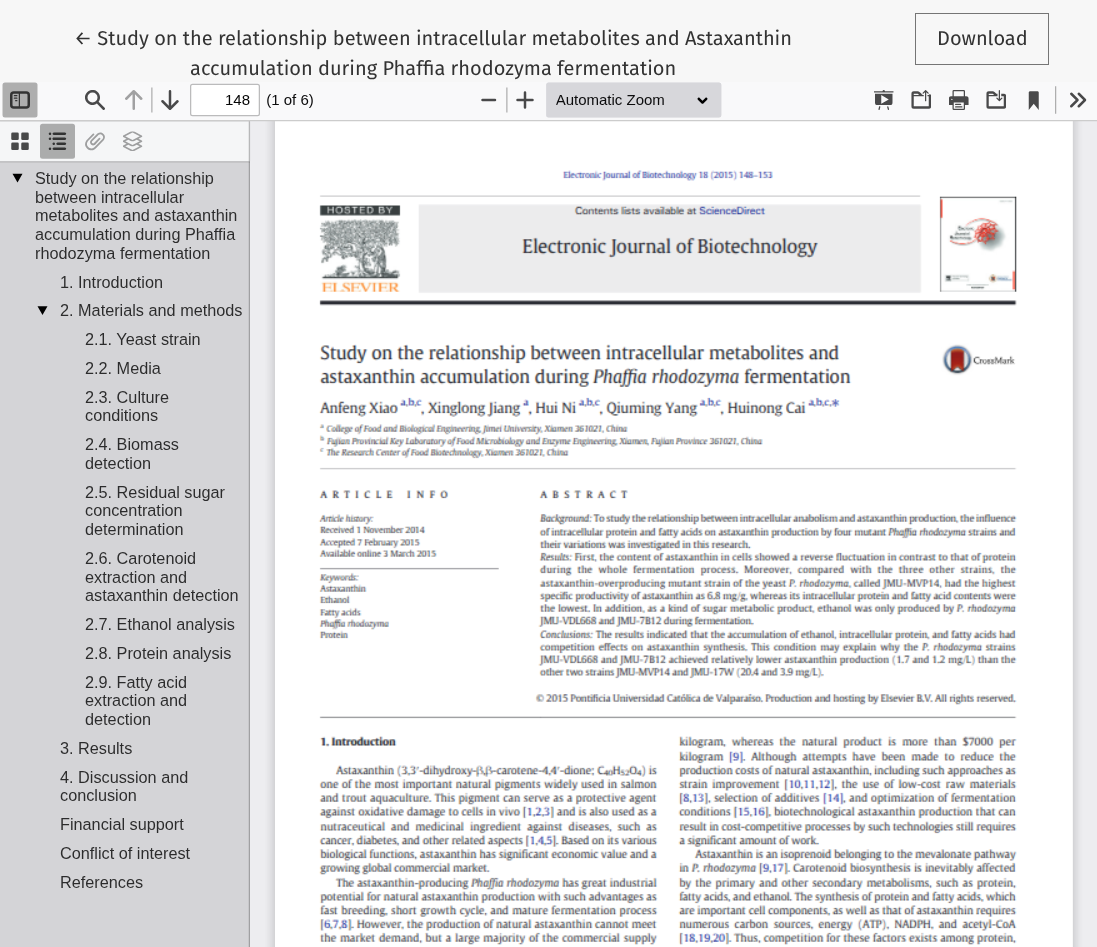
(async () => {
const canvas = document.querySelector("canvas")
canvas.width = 1097
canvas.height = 947
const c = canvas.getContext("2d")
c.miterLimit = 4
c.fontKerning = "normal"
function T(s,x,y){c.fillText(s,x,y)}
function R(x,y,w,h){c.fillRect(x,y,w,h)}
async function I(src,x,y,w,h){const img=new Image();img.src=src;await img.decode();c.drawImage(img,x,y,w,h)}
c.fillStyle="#f7f7f7"
R(0,0,1097,947)
c.font="20px Fira Sans"
c.fillStyle="#333"
T("← Study on the relationship between intracellular metabolites and Astaxanthin",74,45)
T("accumulation during Phaffia rhodozyma fermentation",190,75)
c.strokeStyle="#757575"
c.strokeRect(915.5,13.5,133,51)
T("Download",937,45)
await I("1.png",0,82,1097,865)
})()
